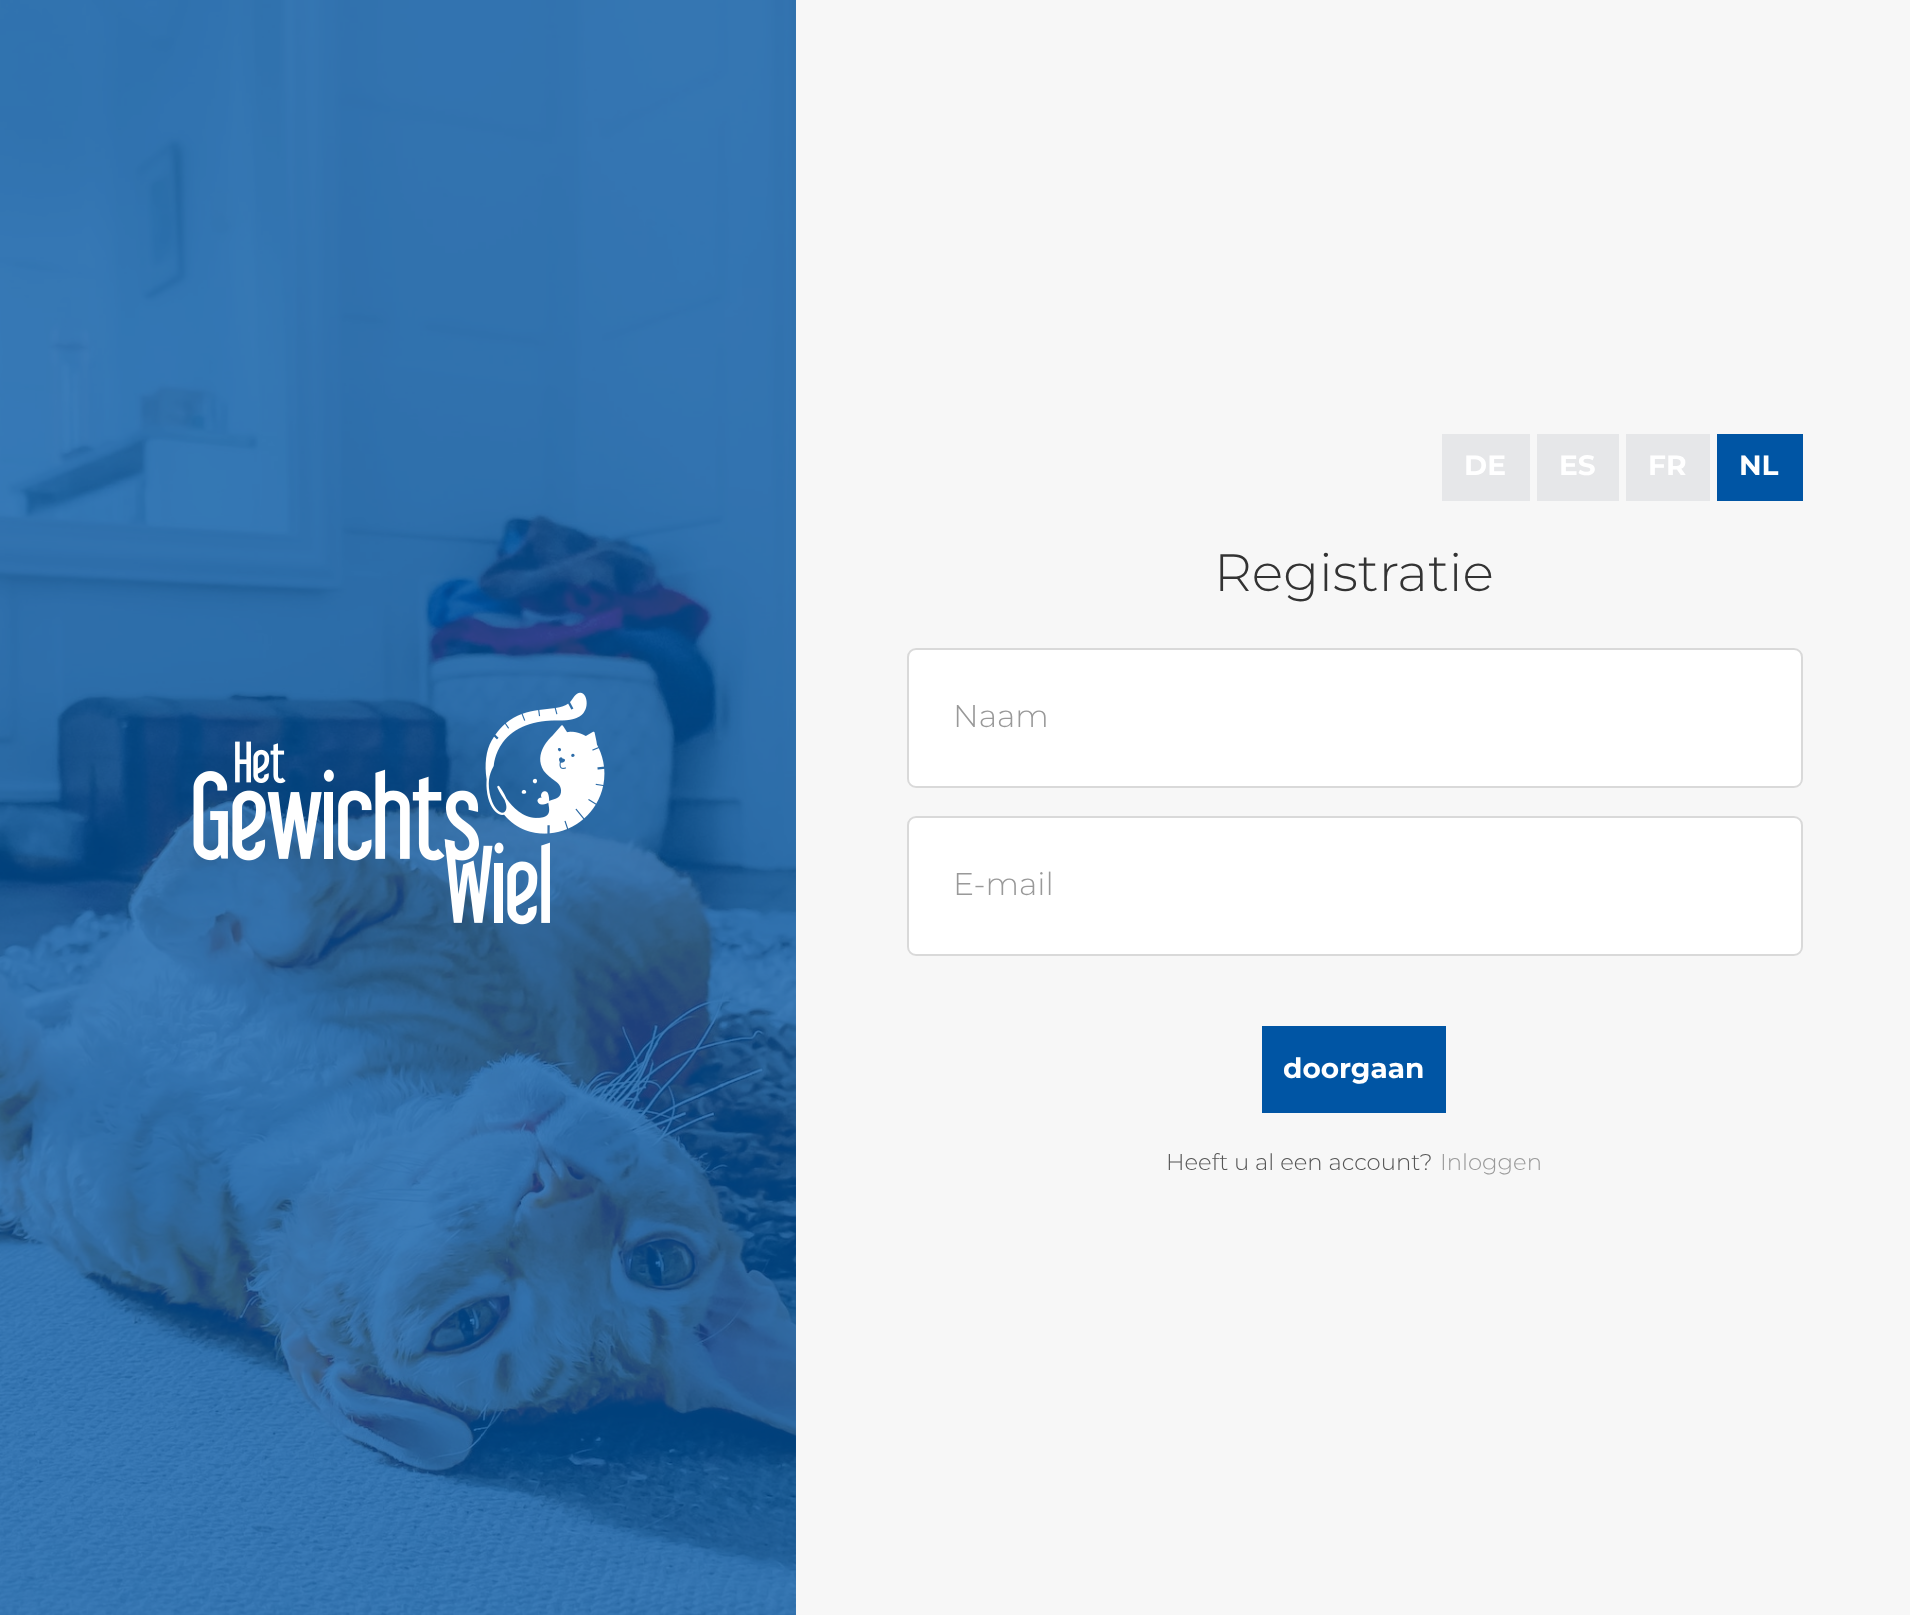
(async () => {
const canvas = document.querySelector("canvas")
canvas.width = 1910
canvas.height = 1615
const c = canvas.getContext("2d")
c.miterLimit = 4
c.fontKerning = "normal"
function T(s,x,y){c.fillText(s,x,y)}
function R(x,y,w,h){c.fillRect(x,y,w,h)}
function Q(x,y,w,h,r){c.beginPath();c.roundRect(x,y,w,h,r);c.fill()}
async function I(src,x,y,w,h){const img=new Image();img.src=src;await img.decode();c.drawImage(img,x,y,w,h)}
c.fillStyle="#f7f7f7"
R(0,0,1910,1615)
await I("1.png",0,0,796,1615)
await I("2.png",193,692,412,233)
c.fillStyle="#e6e7e9"
R(1442,434,88,67)
c.font="bold 28px Montserrat"
c.fillStyle="#fff"
T("DE",1464,475)
c.fillStyle="#e6e7e9"
R(1537,434,82,67)
c.fillStyle="#fff"
T("ES",1559,475)
c.fillStyle="#e6e7e9"
R(1626,434,84,67)
c.fillStyle="#fff"
T("FR",1648,475)
c.fillStyle="#0055a4"
R(1717,434,86,67)
c.fillStyle="#fff"
T("NL",1739,475)
c.font="300 52.5px Montserrat"
c.fillStyle="#333"
T("Registratie",1214,591)
c.fillStyle="#fff"
Q(907,648,896,140,9)
c.beginPath()
c.roundRect(908,649,894,138,8)
c.strokeStyle="#00000026"
c.lineWidth=2
c.stroke()
c.font="300 31.5px Montserrat"
c.fillStyle="#999"
T("Naam",953,727)
c.fillStyle="#fff"
Q(907,816,896,140,9)
c.beginPath()
c.roundRect(908,817,894,138,8)
c.stroke()
c.fillStyle="#999"
T("E-mail",953,895)
c.fillStyle="#0055a4"
R(1262,1026,184,87)
c.font="bold 28px Montserrat"
c.fillStyle="#fff"
T("doorgaan",1283,1078)
c.font="300 22.75px Montserrat"
c.fillStyle="#555"
T("Heeft u al een account?",1166,1170)
c.fillStyle="#999"
T("Inloggen",1440,1170)
})()
